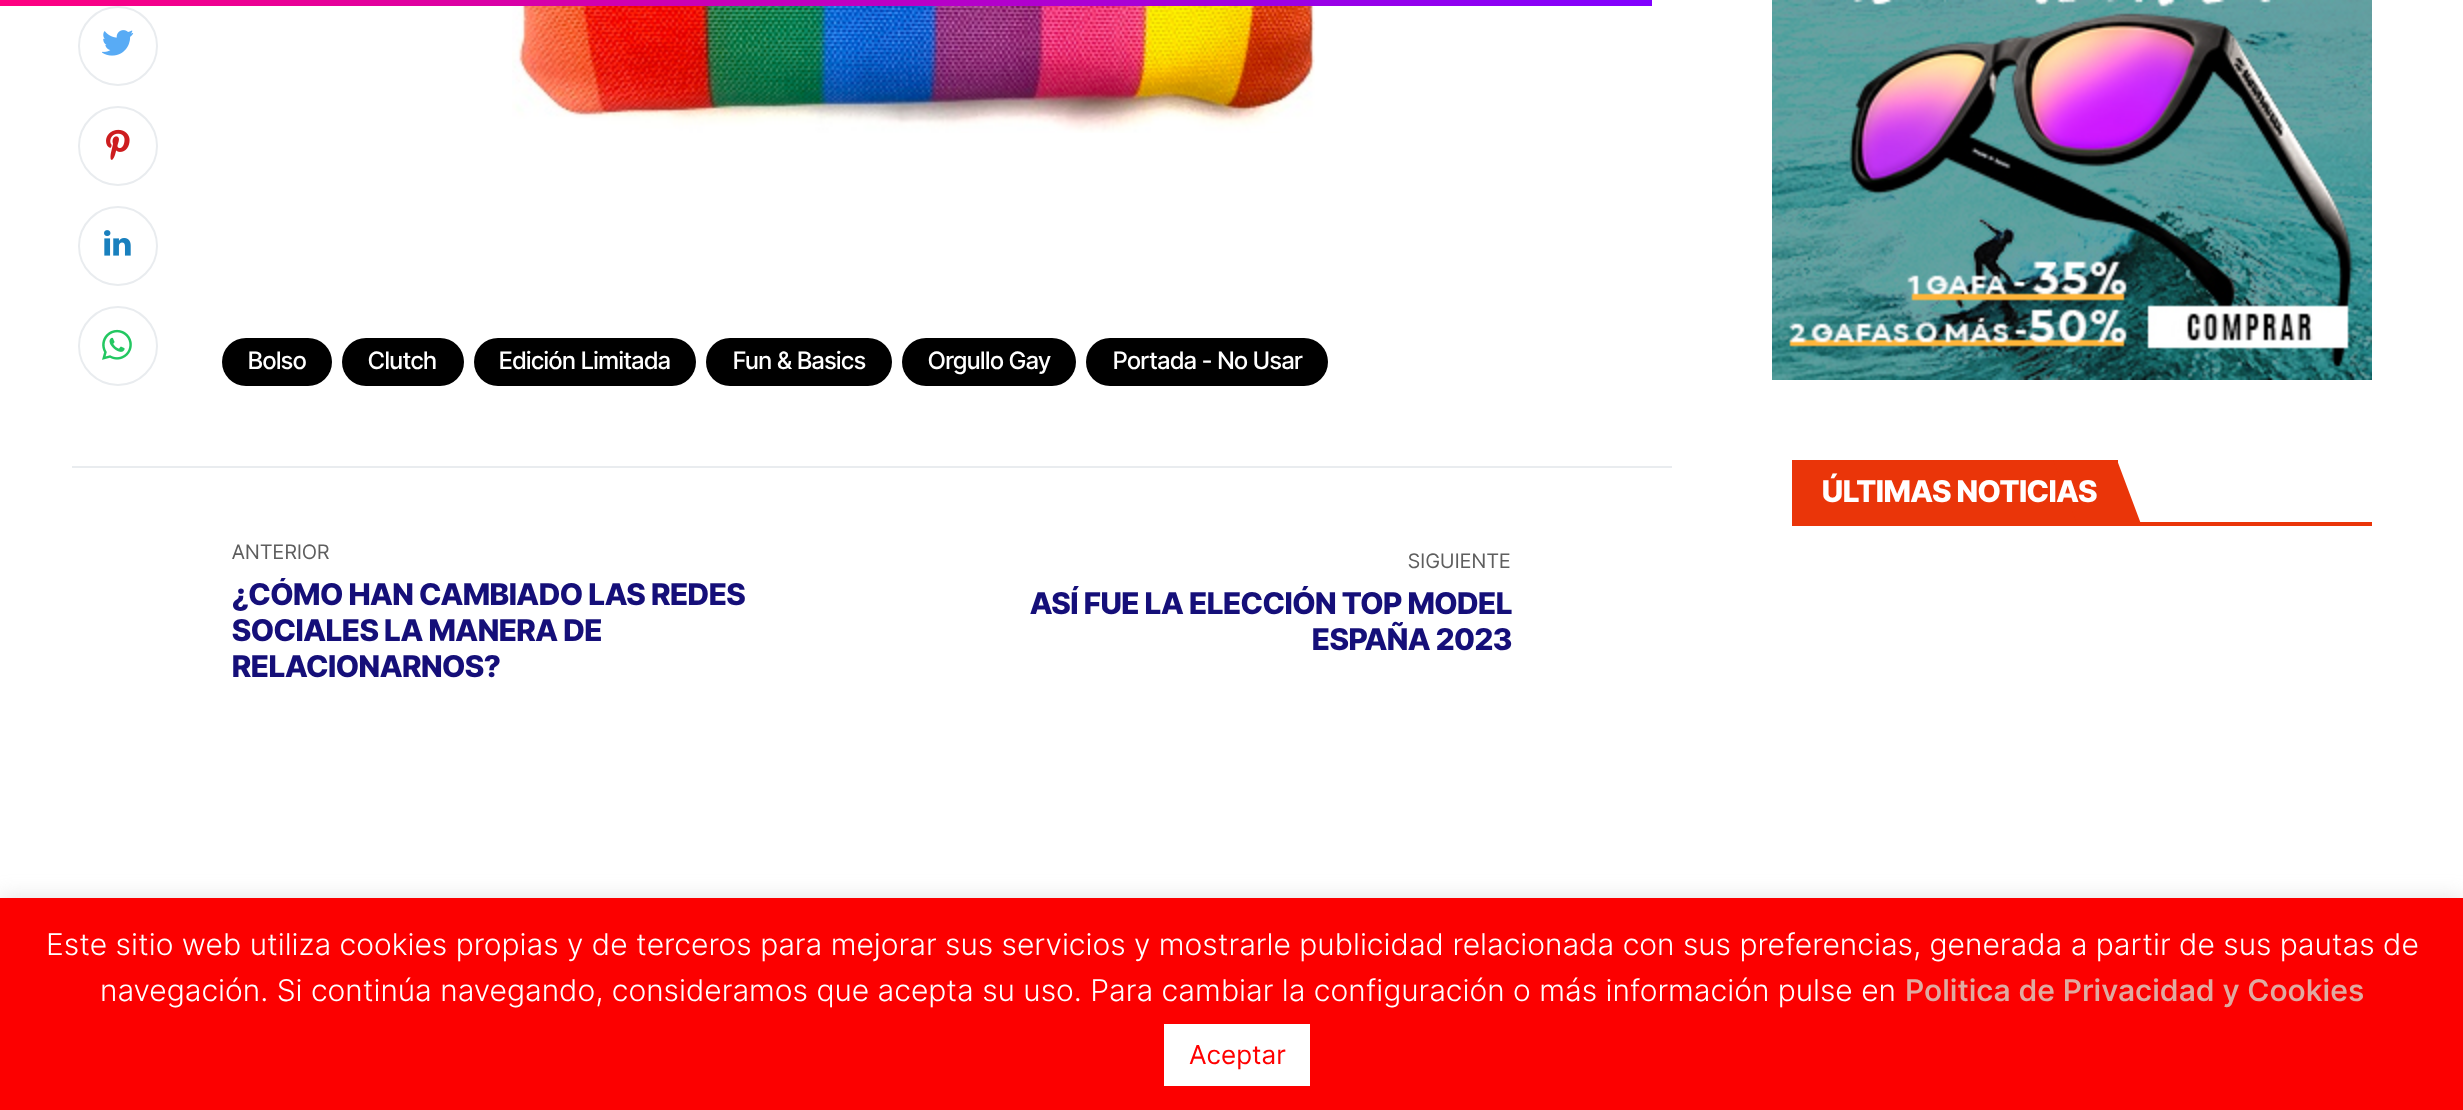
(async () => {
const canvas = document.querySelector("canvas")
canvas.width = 2463
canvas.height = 1110
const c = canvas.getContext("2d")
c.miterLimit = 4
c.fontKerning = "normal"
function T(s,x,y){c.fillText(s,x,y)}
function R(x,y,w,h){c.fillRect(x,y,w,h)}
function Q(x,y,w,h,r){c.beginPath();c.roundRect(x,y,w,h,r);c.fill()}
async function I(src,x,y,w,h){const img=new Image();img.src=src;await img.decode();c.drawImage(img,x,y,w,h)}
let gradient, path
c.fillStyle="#fff"
R(0,0,2463,1110)
gradient = c.createLinearGradient(0,3,1652,3)
gradient.addColorStop(0,"#ff0080")
gradient.addColorStop(1,"#8100ff")
c.fillStyle = gradient
R(0,0,1652,6)
c.beginPath()
c.arc(118,46,39,0,7)
c.strokeStyle="#e9ecef"
c.lineWidth=2
c.stroke()
await I("1.png",102,30,32,26)
c.beginPath()
c.arc(118,146,39,0,7)
c.stroke()
await I("2.png",106,129,24,31)
c.beginPath()
c.arc(118,246,39,0,7)
c.stroke()
await I("3.png",104,230,27,26)
c.beginPath()
c.arc(118,346,39,0,7)
c.stroke()
await I("4.png",102,329,30,31)
await I("5.png",512,6,803,127)
c.fillStyle="#000"
Q(222,338,110,48,24)
c.font="500 24px Inter Tight"
c.fillStyle="#fff"
T("Bolso",248,369)
c.fillStyle="#000"
Q(342,338,122,48,24)
c.fillStyle="#fff"
T("Clutch",368,369)
c.fillStyle="#000"
Q(474,338,222,48,24)
c.fillStyle="#fff"
T("Edición Limitada",499,369)
c.fillStyle="#000"
Q(706,338,186,48,24)
c.fillStyle="#fff"
T("Fun & Basics",733,369)
c.fillStyle="#000"
Q(902,338,174,48,24)
c.fillStyle="#fff"
T("Orgullo Gay",928,369)
c.fillStyle="#000"
Q(1086,338,242,48,24)
c.fillStyle="#fff"
T("Portada - No Usar",1113,369)
c.fillStyle="#e9ecef"
R(72,466,1600,2)
c.letterSpacing="0.75px"
c.font="20px Inter Tight"
c.fillStyle="#5e5e5e"
T("ANTERIOR",232,559)
c.save()
c.beginPath()
c.rect(232,578,590,108)
c.clip()
c.letterSpacing="0px"
c.font="800 30px Inter Tight"
c.fillStyle="#150f79"
T("¿CÓMO HAN CAMBIADO LAS REDES",232,605)
c.restore()
c.letterSpacing="0px"
c.font="800 30px Inter Tight"
c.fillStyle="#150f79"
T("SOCIALES LA MANERA DE",232,641)
T("RELACIONARNOS?",232,677)
c.letterSpacing="0.75px"
c.font="20px Inter Tight"
c.fillStyle="#5e5e5e"
T("SIGUIENTE",1408,568)
c.save()
c.beginPath()
c.rect(922,586,590,72)
c.clip()
c.letterSpacing="0px"
c.font="800 30px Inter Tight"
c.fillStyle="#150f79"
T("ASÍ FUE LA ELECCIÓN TOP MODEL",1030,614)
c.restore()
c.letterSpacing="0px"
c.font="800 30px Inter Tight"
c.fillStyle="#150f79"
T("ESPAÑA 2023",1312,650)
await I("6.png",1772,0,600,380)
c.fillStyle="#ea3509"
R(1792,522,580,4)
R(1792,460,326,62)
path = new Path2D("M2053 460h64l24 64h-64z")
c.fill(path)
c.fillStyle="#fff"
T("ÚLTIMAS NOTICIAS",1822,502)
c.fillStyle="#acabab4d"
c.filter="blur(10px)"
c.beginPath()
c.rect(0,896,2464,212)
c.fill()
c.filter="none"
c.fillStyle="#fc0000"
R(0,898,2463,212)
c.font="300 30px Inter"
c.fillStyle="#fff"
T("Este sitio web utiliza cookies propias y de terceros para mejorar sus servicios y mostrarle publicidad relacionada con sus preferencias, generada a partir de sus pautas de",46,955)
T("navegación. Si continúa navegando, consideramos que acepta su uso. Para cambiar la configuración o más información pulse en",100,1001)
c.font="500 30px Inter"
c.fillStyle="#e0aaa1"
T("Politica de Privacidad y Cookies",1905,1001)
c.fillStyle="#fff"
R(1164,1024,146,62)
c.font="26px Inter"
c.fillStyle="#f00"
T("Aceptar",1189,1064)
})()
